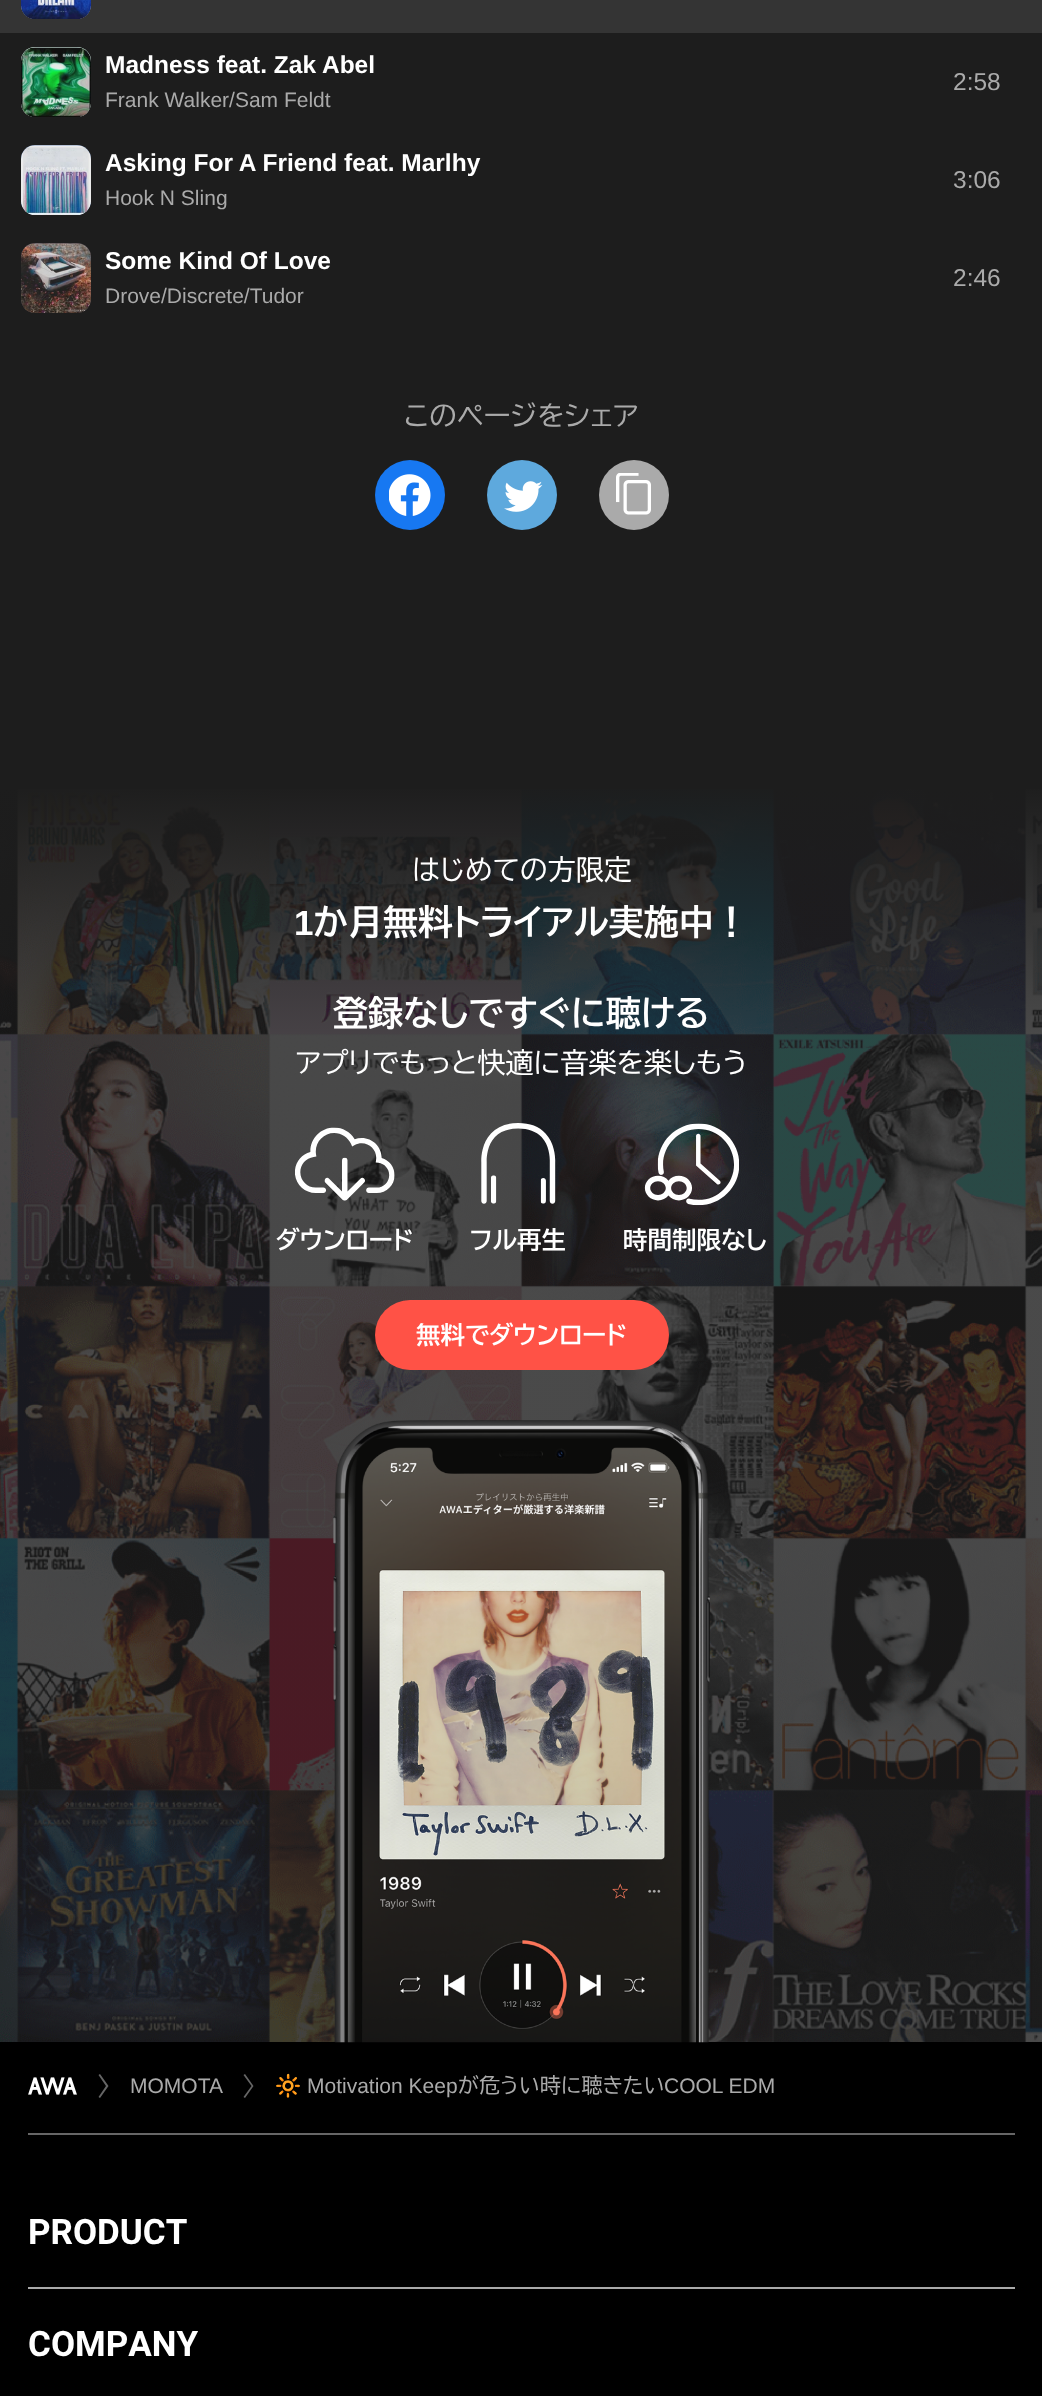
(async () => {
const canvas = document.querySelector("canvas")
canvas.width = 1042
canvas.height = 2396
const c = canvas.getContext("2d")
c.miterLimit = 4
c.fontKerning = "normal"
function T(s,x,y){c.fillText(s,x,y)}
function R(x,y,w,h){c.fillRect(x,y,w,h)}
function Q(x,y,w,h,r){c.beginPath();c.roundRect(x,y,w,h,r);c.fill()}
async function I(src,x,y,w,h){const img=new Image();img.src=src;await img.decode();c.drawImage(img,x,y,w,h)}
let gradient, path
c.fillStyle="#1d1d1d"
R(0,0,1042,2396)
c.fillStyle="#343434"
R(0,0,1042,33)
c.fillStyle="#909cbf"
Q(21,-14,70,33,14)
await I("1.png",21,0,70,19)
c.fillStyle="#dff9f1"
Q(21,47,70,70,14)
await I("2.png",21,47,70,70)
c.font="bold 24.5px Liberation Sans"
c.fillStyle="#fff"
T("Madness feat. Zak Abel",105,73)
c.font="21px Liberation Sans"
c.fillStyle="#aaa"
T("Frank Walker/Sam Feldt",105,107)
c.font="24.5px Liberation Sans"
T("2:58",953,90)
c.fillStyle="#90a5c6"
Q(21,145,70,70,14)
await I("3.png",21,145,70,70)
c.font="bold 24.5px Liberation Sans"
c.fillStyle="#fff"
T("Asking For A Friend feat. Marlhy",105,171)
c.font="21px Liberation Sans"
c.fillStyle="#aaa"
T("Hook N Sling",105,205)
c.font="24.5px Liberation Sans"
T("3:06",953,188)
c.fillStyle="#594f56"
Q(21,243,70,70,14)
await I("4.png",21,243,70,70)
c.font="bold 24.5px Liberation Sans"
c.fillStyle="#fff"
T("Some Kind Of Love",105,269)
c.font="21px Liberation Sans"
c.fillStyle="#aaa"
T("Drove/Discrete/Tudor",105,303)
c.font="24.5px Liberation Sans"
T("2:46",953,286)
c.font="28px BIZ UDPGothic"
T("このページをシェア",404,426)
c.fillStyle="#1778f2"
c.beginPath()
c.arc(410,495,35,0,7)
c.fill()
await I("5.png",389,474,42,42)
c.fillStyle="#5ea9dd"
c.beginPath()
c.arc(522,495,35,0,7)
c.fill()
await I("6.png",504,481,39,31)
c.fillStyle="#aaa"
c.beginPath()
c.arc(634,495,35,0,7)
c.fill()
await I("7.png",616,473,35,42)
await I("8.png",0,789,1042,1253)
gradient = c.createLinearGradient(521,782,522,2042)
gradient.addColorStop(0,"#1d1d1d")
gradient.addColorStop(.2,"#1c1c1ccc")
gradient.addColorStop(1,"#1d1d1dcc")
c.fillStyle = gradient
R(0,789,1042,1253)
c.fillStyle="#fff"
T("はじめての方限定",412,880)
c.font="bold 35px Liberation Sans"
T("1",294,935)
c.font="bold 35px BIZ UDPGothic"
T("か月無料トライアル実施中！",313,935)
T("登録なしですぐに聴ける",333,1026)
c.font="28px BIZ UDPGothic"
T("アプリでもっと快適に音楽を楽しもう",296,1073)
await I("9.png",295,1127,100,74)
c.font="bold 24.5px BIZ UDPGothic"
T("ダウンロード",276,1249)
await I("10.png",481,1123,75,81)
T("フル再生",470,1249)
await I("11.png",644,1123,95,83)
T("時間制限なし",623,1249)
c.fillStyle="#ff5246"
Q(375,1300,294,70,35)
c.fillStyle="#fff"
T("無料でダウンロード",416,1344)
c.fillStyle="#000"
R(0,2042,1042,354)
await I("12.png",333,1420,377,623)
c.fillStyle="#666"
R(28,2133,987,2)
await I("13.png",28,2077,49,18)
path = new Path2D("M100 2074l-1.5 1l7.5 11l-7.5 11l1.5 1l8.5-12z")
c.fill(path,"evenodd")
c.font="21px Liberation Sans"
c.fillStyle="#aaa"
T("MOMOTA",130,2093)
c.fillStyle="#666"
path = new Path2D("M245 2074l-1.5 1l8 11l-8 11l1.5 1l8.5-12z")
c.fill(path,"evenodd")
c.font="21px Noto Color Emoji"
c.fillStyle="#aaa"
T("🔆",275,2093)
c.font="21px Liberation Sans"
T("Motivation Keep",307,2093)
c.font="21px BIZ UDPGothic"
T("が危うい時に聴きたい",458,2093)
c.font="21px Liberation Sans"
T("COOL EDM",664,2093)
R(28,2287,987,2)
c.font="bold 35px Roboto"
c.fillStyle="#fff"
T("PRODUCT",28,2244)
T("COMPANY",28,2356)
})()
